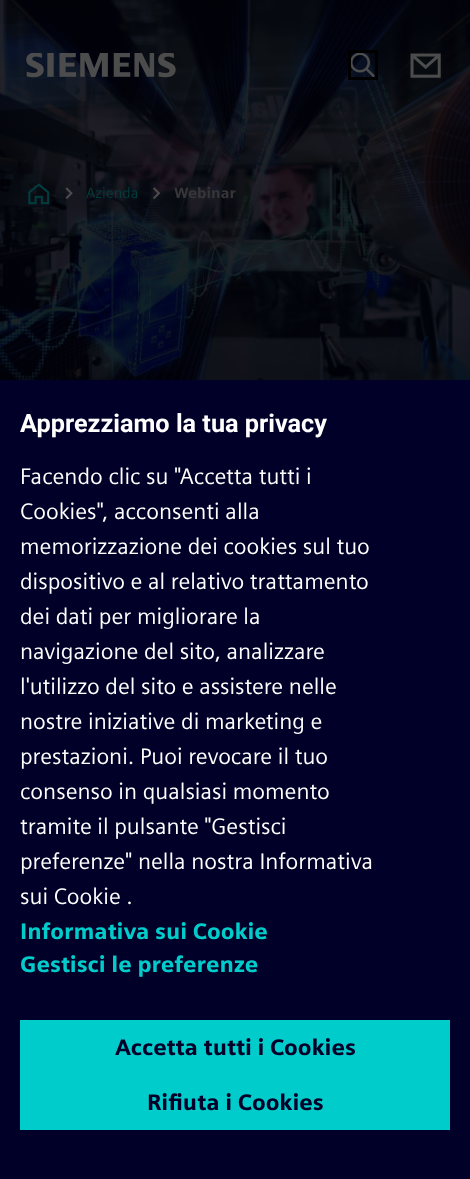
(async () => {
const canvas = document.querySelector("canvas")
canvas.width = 470
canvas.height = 1179
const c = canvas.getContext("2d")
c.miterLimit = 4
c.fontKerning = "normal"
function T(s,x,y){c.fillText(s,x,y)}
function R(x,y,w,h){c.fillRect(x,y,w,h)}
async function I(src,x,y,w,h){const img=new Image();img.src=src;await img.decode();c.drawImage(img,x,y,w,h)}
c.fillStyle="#fff"
R(0,0,470,1179)
await I("1.png",0,0,470,380)
await I("2.png",26,53,150,25)
await I("3.png",351,53,24,24)
c.strokeStyle="#000"
c.lineWidth=3
c.strokeRect(349.5,51.5,27,27)
await I("4.png",410,53,31,25)
await I("5.png",28,183,22,22)
await I("6.png",65,187,8,13)
c.font="15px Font"
c.fillStyle="#003d3d"
T("Azienda",86,198)
await I("7.png",153,187,8,13)
c.font="bold 15px Font"
c.fillStyle="#363639"
T("Webinar",174,198)
c.fillStyle="#000028"
R(0,380,470,799)
c.font="bold 25.25px Roboto"
c.fillStyle="#fff"
T("Apprezziamo la tua privacy",20,432)
c.font="22.5px Font"
T("Facendo clic su \"Accetta tutti i",20,484)
T("Cookies\", acconsenti alla",20,519)
T("memorizzazione dei cookies sul tuo",20,554)
T("dispositivo e al relativo trattamento",20,589)
T("dei dati per migliorare la",20,624)
T("navigazione del sito, analizzare",20,659)
T("l'utilizzo del sito e assistere nelle",20,694)
T("nostre iniziative di marketing e",20,729)
T("prestazioni. Puoi revocare il tuo",20,764)
T("consenso in qualsiasi momento",20,799)
T("tramite il pulsante \"Gestisci",20,834)
T("preferenze\" nella nostra Informativa",20,869)
T("sui Cookie .",20,904)
c.font="bold 22.5px Font"
c.fillStyle="#0cc"
T("Informativa sui Cookie",20,939)
T("Gestisci le preferenze",20,972)
R(20,1020,430,110)
c.fillStyle="#000028"
T("Accetta tutti i Cookies",115,1055)
T("Rifiuta i Cookies",147,1110)
})()
